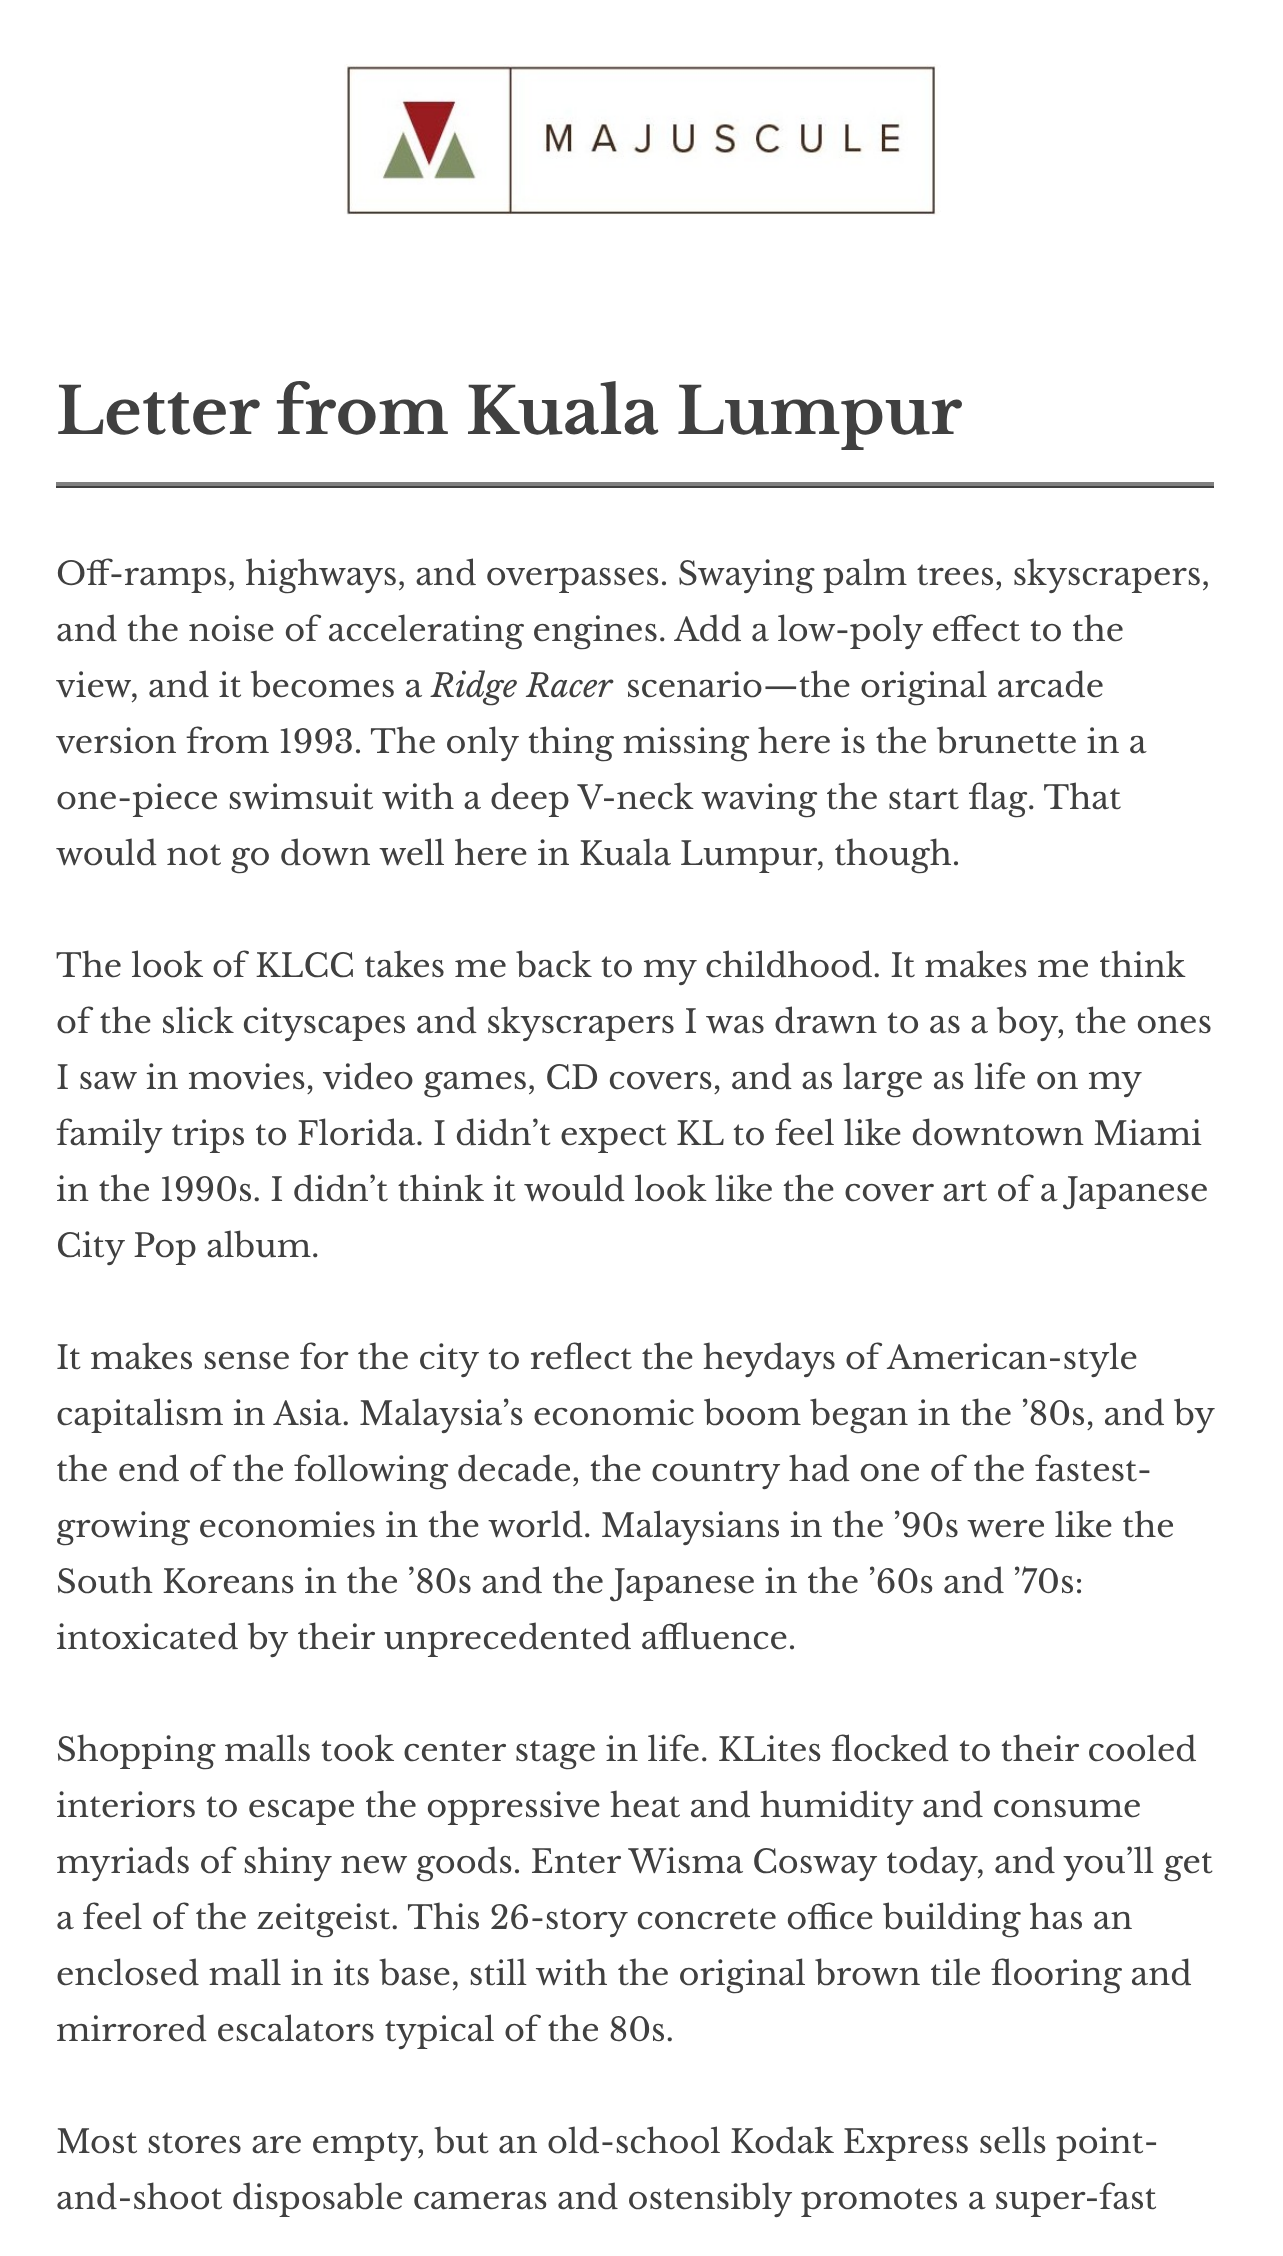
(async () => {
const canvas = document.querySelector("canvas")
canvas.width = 1283
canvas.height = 2256
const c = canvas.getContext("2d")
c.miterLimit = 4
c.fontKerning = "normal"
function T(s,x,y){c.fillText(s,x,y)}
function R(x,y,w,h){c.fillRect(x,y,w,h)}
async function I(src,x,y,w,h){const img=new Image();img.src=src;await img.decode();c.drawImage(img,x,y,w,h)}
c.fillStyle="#fff"
R(0,0,1283,2256)
await I("1.png",344,64,597,152)
c.font="bold 64px Libre Baskerville"
c.fillStyle="#404040"
T("Letter from Kuala Lumpur",56,434)
R(56,486,1158,2)
c.fillStyle="#808080"
R(56,482,1158,4)
c.font="32px Libre Baskerville"
c.fillStyle="#404040"
T("Off-ramps, highways, and overpasses. Swaying palm trees, skyscrapers,",56,585)
T("and the noise of accelerating engines. Add a low-poly effect to the",56,641)
T("view, and it becomes a",56,697)
c.font="italic 32px Libre Baskerville"
T("Ridge Racer",431,697)
c.font="32px Libre Baskerville"
T("scenario—the original arcade",626,697)
T("version from 1993. The only thing missing here is the brunette in a",56,753)
T("one-piece swimsuit with a deep V-neck waving the start flag. That",56,809)
T("would not go down well here in Kuala Lumpur, though.",56,865)
T("The look of KLCC takes me back to my childhood. It makes me think",56,977)
T("of the slick cityscapes and skyscrapers I was drawn to as a boy, the ones",56,1033)
T("I saw in movies, video games, CD covers, and as large as life on my",56,1089)
T("family trips to Florida. I didn’t expect KL to feel like downtown Miami",56,1145)
T("in the 1990s. I didn’t think it would look like the cover art of a Japanese",56,1201)
T("City Pop album.",56,1257)
T("It makes sense for the city to reflect the heydays of American-style",56,1369)
T("capitalism in Asia. Malaysia’s economic boom began in the ’80s, and by",56,1425)
T("the end of the following decade, the country had one of the fastest-",56,1481)
T("growing economies in the world. Malaysians in the ’90s were like the",56,1537)
T("South Koreans in the ’80s and the Japanese in the ’60s and ’70s:",56,1593)
T("intoxicated by their unprecedented affluence.",56,1649)
T("Shopping malls took center stage in life. KLites flocked to their cooled",56,1761)
T("interiors to escape the oppressive heat and humidity and consume",56,1817)
T("myriads of shiny new goods. Enter Wisma Cosway today, and you’ll get",56,1873)
T("a feel of the zeitgeist. This 26-story concrete office building has an",56,1929)
T("enclosed mall in its base, still with the original brown tile flooring and",56,1985)
T("mirrored escalators typical of the 80s.",56,2041)
T("Most stores are empty, but an old-school Kodak Express sells point-",56,2153)
T("and-shoot disposable cameras and ostensibly promotes a super-fast",56,2209)
})()
